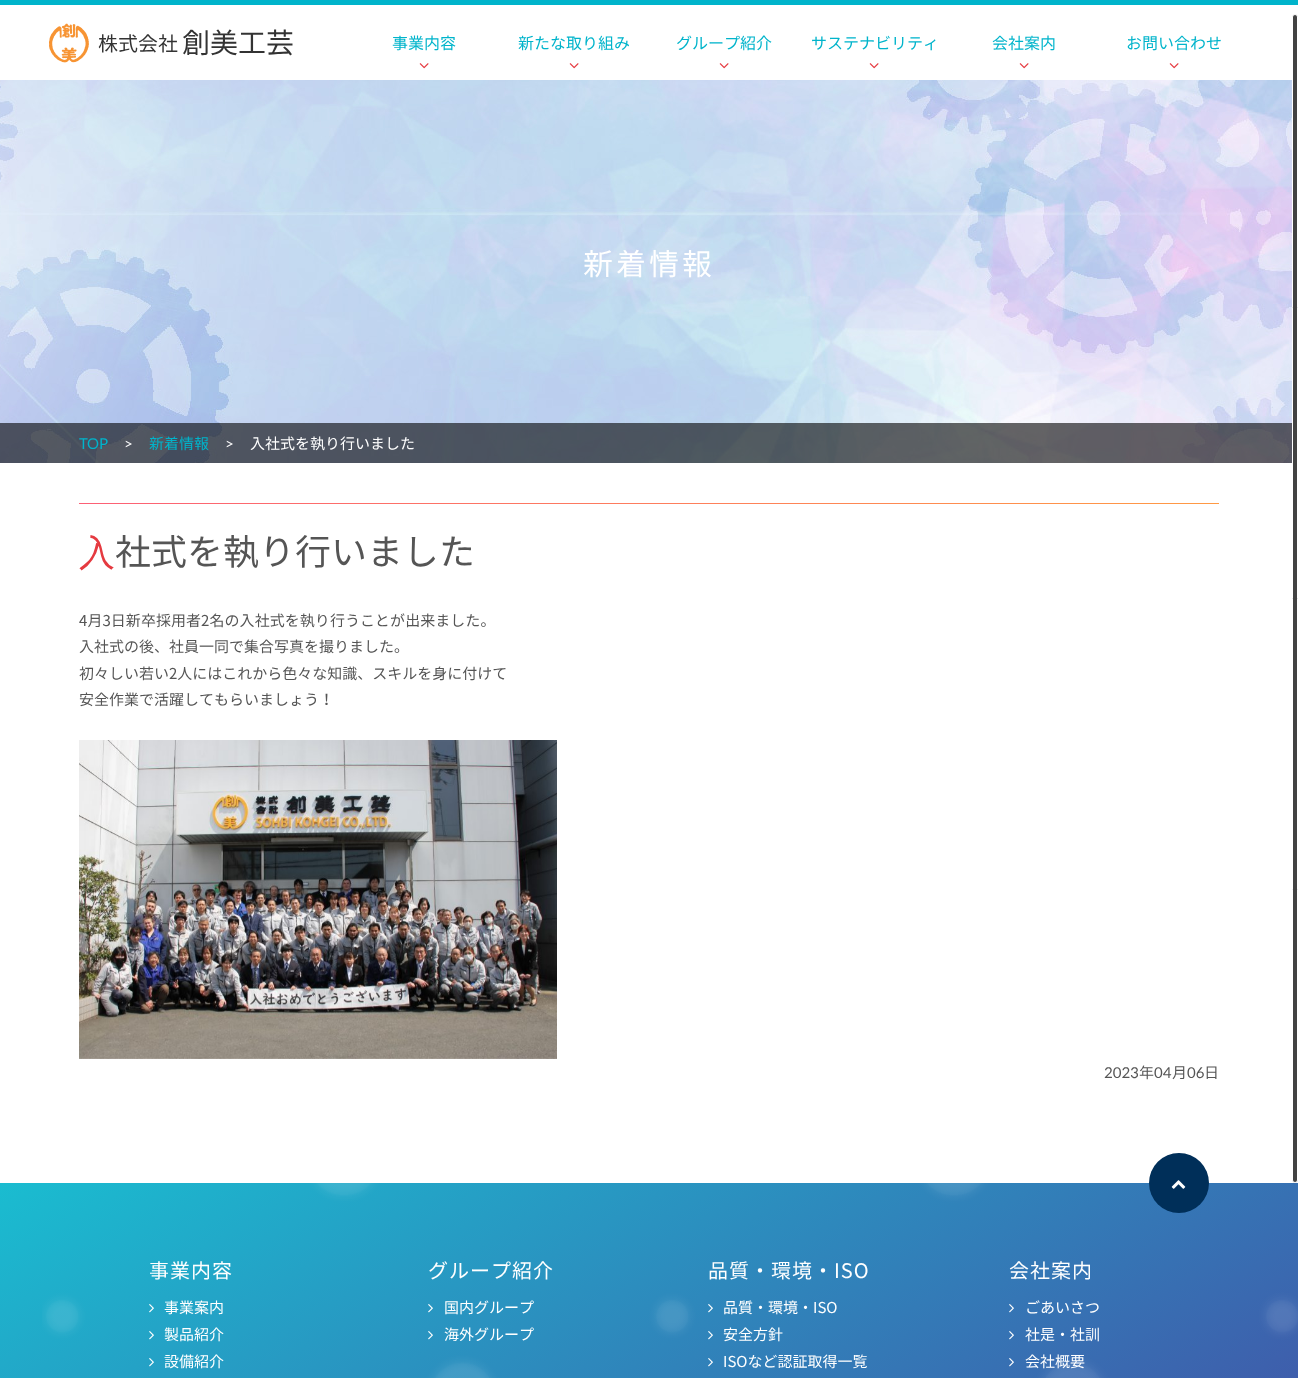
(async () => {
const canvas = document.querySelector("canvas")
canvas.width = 1298
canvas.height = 1378
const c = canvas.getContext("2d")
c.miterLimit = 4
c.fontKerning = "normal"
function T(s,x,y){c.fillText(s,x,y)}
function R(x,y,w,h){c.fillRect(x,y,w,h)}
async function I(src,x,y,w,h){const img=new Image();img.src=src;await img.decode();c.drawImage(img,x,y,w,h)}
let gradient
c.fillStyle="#fff"
R(0,0,1298,1378)
c.fillStyle="#00b4cb"
R(0,0,1298,5)
await I("1.png",49,23,40,40)
c.font="20px Noto Sans JP"
c.fillStyle="#333"
T("株式会社",98,51)
c.font="28px Noto Sans JP"
T("創美工芸",182,53)
c.font="16px Noto Sans JP"
c.fillStyle="#00b4cb"
T("事業内容",392,49)
await I("2.png",419,63,10,6)
T("新たな取り組み",518,49)
await I("2.png",569,63,10,6)
T("グループ紹介",676,49)
await I("2.png",719,63,10,6)
T("サステナビリティ",811,49)
await I("2.png",869,63,10,6)
T("会社案内",992,49)
await I("2.png",1019,63,10,6)
T("お問い合わせ",1126,49)
await I("2.png",1169,63,10,6)
await I("3.png",0,80,1292,383)
c.letterSpacing="3px"
c.font="30px Noto Sans JP"
c.fillStyle="#fff"
T("新着情報",583,275)
c.fillStyle="#00000099"
R(0,423,1292,40)
c.letterSpacing="0px"
c.font="15px Lato"
c.fillStyle="#00b4cb"
T("TOP",79,449)
c.fillStyle="#fff"
T(">",124,449)
c.font="15px Noto Sans JP"
c.fillStyle="#00b4cb"
T("新着情報",149,449)
c.font="15px Lato"
c.fillStyle="#fff"
T(">",225,449)
c.font="15px Noto Sans JP"
T("入社式を執り行いました",250,449)
gradient = c.createLinearGradient(716,687,582,320)
gradient.addColorStop(0,"#ff9a44")
gradient.addColorStop(1,"#fc6076")
c.fillStyle = gradient
R(79,503,1140,1)
c.font="36px Noto Sans"
c.fillStyle="#e53a40"
T("入",79,565)
c.font="36px Noto Sans JP"
c.fillStyle="#555"
T("社式を執り行いました",115,565)
c.letterSpacing="0.05px"
c.font="15px Noto Sans JP"
T("4月3日新卒採用者2名の入社式を執り行うことが出来ました。",79,626)
c.letterSpacing="0px"
T("入社式の後、社員一同で集合写真を撮りました。",79,652)
T("初々しい若い2人にはこれから色々な知識、スキルを身に付けて",79,679)
T("安全作業で活躍してもらいましょう！",79,705)
await I("4.png",79,740,478,319)
c.font="15px Lato"
T("2023",1104,1078)
c.font="15px Noto Sans JP"
T("年",1139,1078)
c.font="15px Lato"
T("04",1154,1078)
c.font="15px Noto Sans JP"
T("月",1172,1078)
c.font="15px Lato"
T("06",1187,1078)
c.font="15px Noto Sans JP"
T("日",1204,1078)
gradient = c.createLinearGradient(903,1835,395,955)
gradient.addColorStop(0,"#4747a3")
gradient.addColorStop(1,"#1abcd0")
c.fillStyle = gradient
R(0,1183,1298,195)
await I("5.png",42,1183,1256,195)
c.fillStyle="#002f59"
c.beginPath()
c.arc(1179,1183,30,0,7)
c.fill()
await I("6.png",1171,1180,15,9)
c.letterSpacing="1px"
c.font="20px Noto Sans JP"
c.fillStyle="#fff"
T("事業内容",149,1278)
await I("7.png",149,1304,5,9)
c.letterSpacing="0px"
c.font="15px Noto Sans JP"
T("事業案内",164,1313)
await I("8.png",149,1331,5,9)
T("製品紹介",164,1340)
await I("9.png",149,1358,5,9)
T("設備紹介",164,1367)
c.letterSpacing="1px"
c.font="20px Noto Sans JP"
T("グループ紹介",428,1278)
await I("10.png",428,1304,5,9)
c.letterSpacing="0px"
c.font="15px Noto Sans JP"
T("国内グループ",444,1313)
await I("11.png",428,1331,5,9)
T("海外グループ",444,1340)
c.letterSpacing="1px"
c.font="20px Noto Sans JP"
T("品質・環境・ISO",708,1278)
await I("12.png",708,1304,5,9)
c.letterSpacing="0px"
c.font="15px Noto Sans JP"
T("品質・環境・ISO",723,1313)
await I("13.png",708,1331,5,9)
T("安全方針",723,1340)
await I("14.png",708,1358,5,9)
T("ISOなど認証取得一覧",723,1367)
c.letterSpacing="1px"
c.font="20px Noto Sans JP"
T("会社案内",1009,1278)
await I("15.png",1009,1304,5,9)
c.letterSpacing="0px"
c.font="15px Noto Sans JP"
T("ごあいさつ",1025,1313)
await I("16.png",1009,1331,5,9)
T("社是・社訓",1025,1340)
await I("17.png",1009,1358,5,9)
T("会社概要",1025,1367)
c.fillStyle="#424242"
c.beginPath()
c.roundRect(1292.5,14.5,5,1168,2.5)
c.fill()
c.strokeStyle="#fff"
c.stroke()
})()
